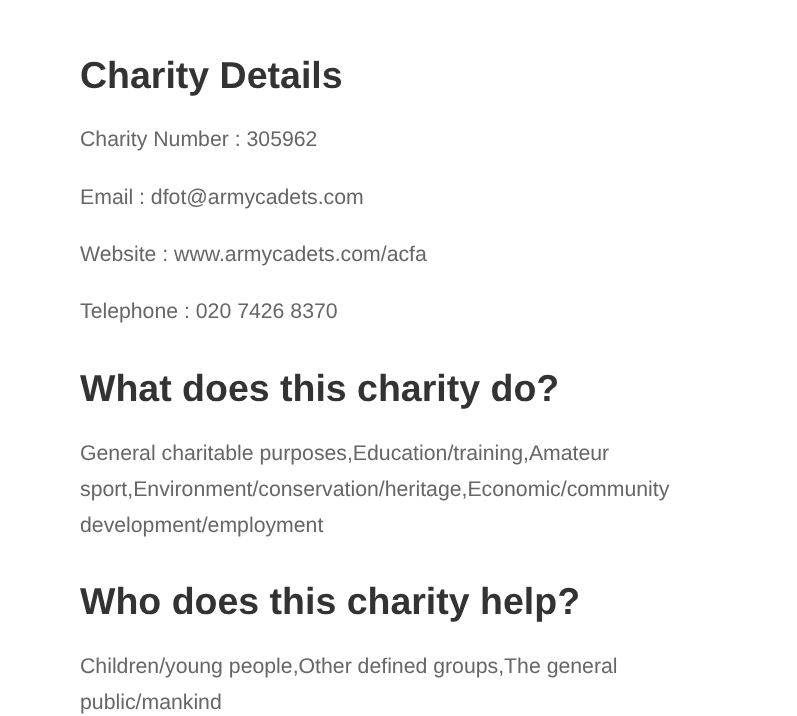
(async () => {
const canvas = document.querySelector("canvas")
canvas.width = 797
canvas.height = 716
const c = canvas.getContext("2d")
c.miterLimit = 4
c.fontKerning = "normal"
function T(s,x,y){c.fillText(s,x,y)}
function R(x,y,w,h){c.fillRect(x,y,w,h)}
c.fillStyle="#fff"
R(0,0,797,716)
c.font="bold 37.5px Liberation Sans"
c.fillStyle="#333"
T("Charity Details",80,88)
c.font="21.25px Liberation Sans"
c.fillStyle="#666"
T("Charity Number : 305962",80,146)
T("Email : dfot@armycadets.com",80,204)
T("Website : www.armycadets.com/acfa",80,261)
T("Telephone : 020 7426 8370",80,318)
c.font="bold 37.5px Liberation Sans"
c.fillStyle="#333"
T("What does this charity do?",80,401)
c.font="21.25px Liberation Sans"
c.fillStyle="#666"
T("General charitable purposes,Education/training,Amateur",80,460)
T("sport,Environment/conservation/heritage,Economic/community",80,496)
T("development/employment",80,532)
c.font="bold 37.5px Liberation Sans"
c.fillStyle="#333"
T("Who does this charity help?",80,614)
c.font="21.25px Liberation Sans"
c.fillStyle="#666"
T("Children/young people,Other defined groups,The general",80,673)
T("public/mankind",80,709)
})()
